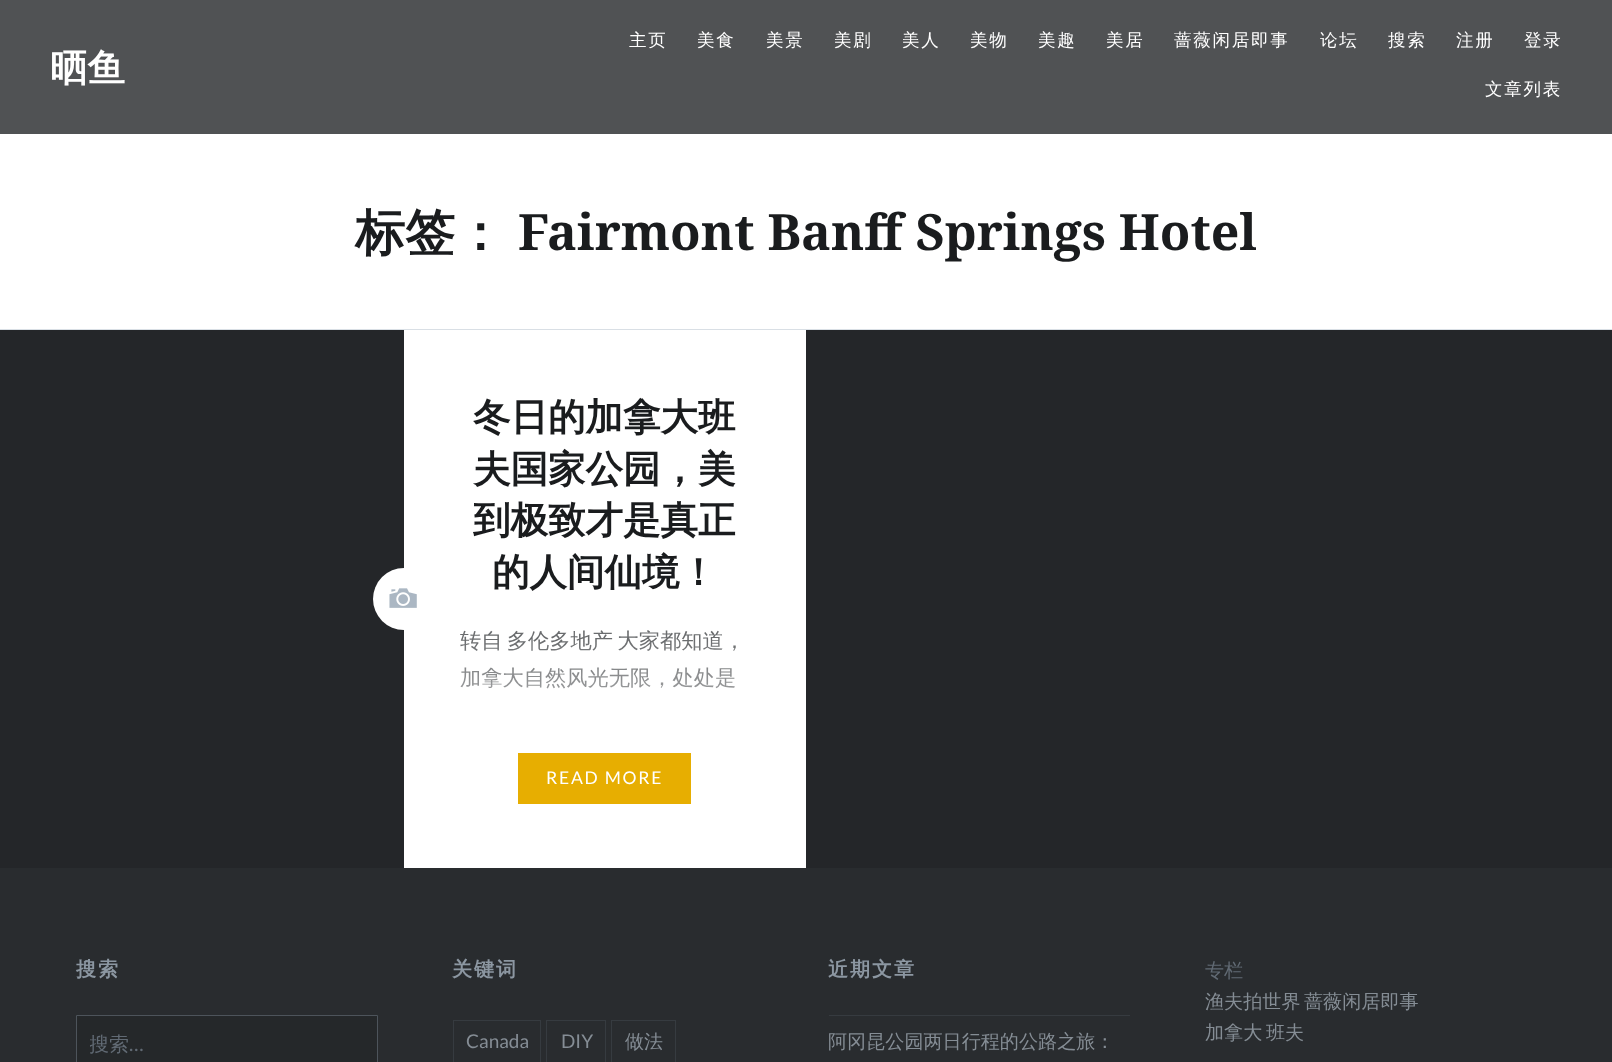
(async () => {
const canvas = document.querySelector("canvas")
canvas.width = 1612
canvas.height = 1062
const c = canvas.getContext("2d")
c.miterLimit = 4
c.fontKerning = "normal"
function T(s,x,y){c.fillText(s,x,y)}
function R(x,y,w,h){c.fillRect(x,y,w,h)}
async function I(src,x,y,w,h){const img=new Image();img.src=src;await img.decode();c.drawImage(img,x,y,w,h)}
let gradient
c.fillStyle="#fff"
R(0,0,1612,1062)
c.fillStyle="#505254"
R(0,0,1612,134)
c.font="bold 37.5px WenQuanYi Zen Hei"
c.fillStyle="#fff"
T("晒鱼",50,81)
c.letterSpacing="1.75px"
c.font="500 17.5px WenQuanYi Zen Hei"
T("主页",629,46)
T("美食",697,46)
T("美景",766,46)
T("美剧",834,46)
T("美人",902,46)
T("美物",970,46)
T("美趣",1038,46)
T("美居",1106,46)
T("蔷薇闲居即事",1174,46)
T("论坛",1320,46)
T("搜索",1388,46)
T("注册",1456,46)
T("登录",1524,46)
T("文章列表",1485,95)
c.fillStyle="#242629"
R(806,330,806,538)
c.fillStyle="#d9dfe5"
R(0,329,1612,1)
c.letterSpacing="0px"
c.font="bold 50px WenQuanYi Zen Hei"
c.fillStyle="#1a1c1e"
T("标签：",355,250)
c.font="bold 50px Noto Serif"
T("Fairmont Banff Springs Hotel",518,250)
c.fillStyle="#242629"
R(0,330,404,538)
c.fillStyle="#fff"
c.beginPath()
c.arc(404,599,31,0,7)
c.fill()
c.font="bold 37.5px WenQuanYi Zen Hei"
c.fillStyle="#1a1c1e"
T("冬日的加拿大班",473,430)
T("夫国家公园，美",473,482)
T("到极致才是真正",473,533)
T("的人间仙境！",492,585)
c.wordSpacing="-2px"
c.font="500 21.25px WenQuanYi Zen Hei"
c.fillStyle="#6a6c6e"
T("转自 多伦多地产 大家都知道，",460,648)
c.wordSpacing="0px"
T("加拿大自然风光无限，处处是",460,685)
c.fillStyle="#e7ae01"
R(518,753,173,51)
c.letterSpacing="1.75px"
c.font="17.5px Lato"
c.fillStyle="#fff"
T("READ MORE",546,784)
gradient = c.createLinearGradient(605,638,605,803)
gradient.addColorStop(0,"#ffffff00")
gradient.addColorStop(1,"#fff")
c.fillStyle = gradient
R(460,642,275,47)
await I("1.png",389,588,28,20)
c.fillStyle="#292c2f"
R(0,868,1612,194)
c.letterSpacing="2px"
c.font="bold 20px WenQuanYi Zen Hei"
c.fillStyle="#8c97a2"
T("搜索",76,976)
c.fillStyle="#25282a"
c.beginPath()
c.rect(76.5,1015.5,301,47)
c.fill()
c.strokeStyle="#4d545b"
c.stroke()
c.save()
c.beginPath()
c.rect(90,1030,269,28)
c.clip()
c.letterSpacing="0px"
c.font="500 20px WenQuanYi Zen Hei"
c.fillStyle="#616a74"
T("搜索",89,1051)
c.restore()
c.letterSpacing="0px"
c.font="20px Lato"
c.fillStyle="#616a74"
T("…",129,1051)
c.letterSpacing="2px"
c.font="bold 20px WenQuanYi Zen Hei"
c.fillStyle="#8c97a2"
T("关键词",452,976)
c.strokeStyle="#363b40"
c.strokeRect(453.5,1020.5,87,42)
c.letterSpacing="0px"
c.font="19px Lato"
c.fillStyle="#858d95"
T("Canada",466,1048)
c.strokeRect(546.5,1020.5,59,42)
T("DIY",561,1048)
c.strokeRect(611.5,1020.5,64,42)
c.font="500 19px WenQuanYi Zen Hei"
T("做法",625,1048)
c.letterSpacing="2px"
c.font="bold 20px WenQuanYi Zen Hei"
c.fillStyle="#8c97a2"
T("近期文章",828,976)
c.fillStyle="#363b40"
R(829,1015,301,1)
c.letterSpacing="0px"
c.font="500 19.1px WenQuanYi Zen Hei"
c.fillStyle="#858d95"
T("阿冈昆公园两日行程的公路之旅：",828,1048)
c.fillStyle="#616a74"
T("专栏",1205,977)
c.fillStyle="#858d95"
T("渔夫拍世界",1205,1008)
T("蔷薇闲居即事",1304,1008)
T("加拿大",1205,1039)
T("班夫",1266,1039)
})()
